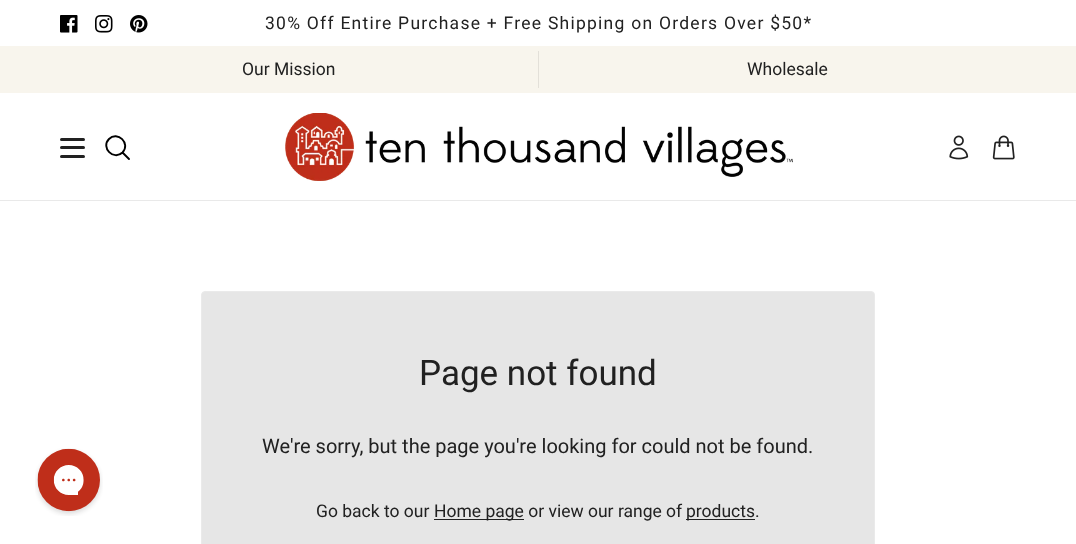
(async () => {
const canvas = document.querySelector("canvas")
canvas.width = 1076
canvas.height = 544
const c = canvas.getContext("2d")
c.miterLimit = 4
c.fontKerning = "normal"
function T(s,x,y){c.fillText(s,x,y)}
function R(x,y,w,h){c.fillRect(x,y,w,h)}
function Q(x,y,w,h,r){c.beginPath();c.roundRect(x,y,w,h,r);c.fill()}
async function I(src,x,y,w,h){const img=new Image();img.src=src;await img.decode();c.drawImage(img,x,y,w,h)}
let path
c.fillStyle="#fff"
R(0,0,1076,544)
await I("1.png",35,448,68,68)
await I("2.png",60,15,18,18)
await I("3.png",95,15,18,18)
await I("4.png",130,15,18,18)
c.letterSpacing="1.25px"
c.font="17.5px Roboto"
c.fillStyle="#212121"
T("30% Off Entire Purchase + Free Shipping on Orders Over $50*",265,29)
c.fillStyle="#f8f5ed"
R(0,46,1076,47)
c.fillStyle="#e3e0d9"
R(538,51,1,37)
c.letterSpacing="0px"
c.fillStyle="#212121"
T("Our Mission",242,75)
T("Wholesale",747,75)
Q(60,138,25,3,1.5)
Q(60,146,25,3,1.5)
Q(60,155,25,3,1.5)
path = new Path2D("M129 159l-6.5-6.5m0 0c8.5-9-5-22-13.5-13.5c-8.5 8.5 4.5 22 13.5 13.5z")
c.strokeStyle="#000"
c.lineWidth=1.9
c.lineCap="round"
c.lineJoin="round"
c.stroke(path)
await I("5.png",285,113,508,68)
await I("6.png",949,135,20,25)
await I("7.png",992,135,23,25)
c.fillStyle="#e9e9e9"
R(0,200,1076,1)
c.fillStyle="#e6e6e6"
c.beginPath()
c.roundRect(201.5,291.5,673,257,3.5)
c.fill()
c.strokeStyle="#eaeaea"
c.lineWidth=1
c.lineJoin="miter"
c.stroke()
c.font="35px Roboto"
c.fillStyle="#212121"
T("Page not found",419,385)
c.font="20px Roboto"
T("We're sorry, but the page you're looking for could not be found.",262,453)
c.font="17.5px Roboto"
T("Go back to our",316,517)
R(434,519,90,1)
T("Home page or view our range of",434,517)
R(686,519,69,1)
T("products.",686,517)
})()
